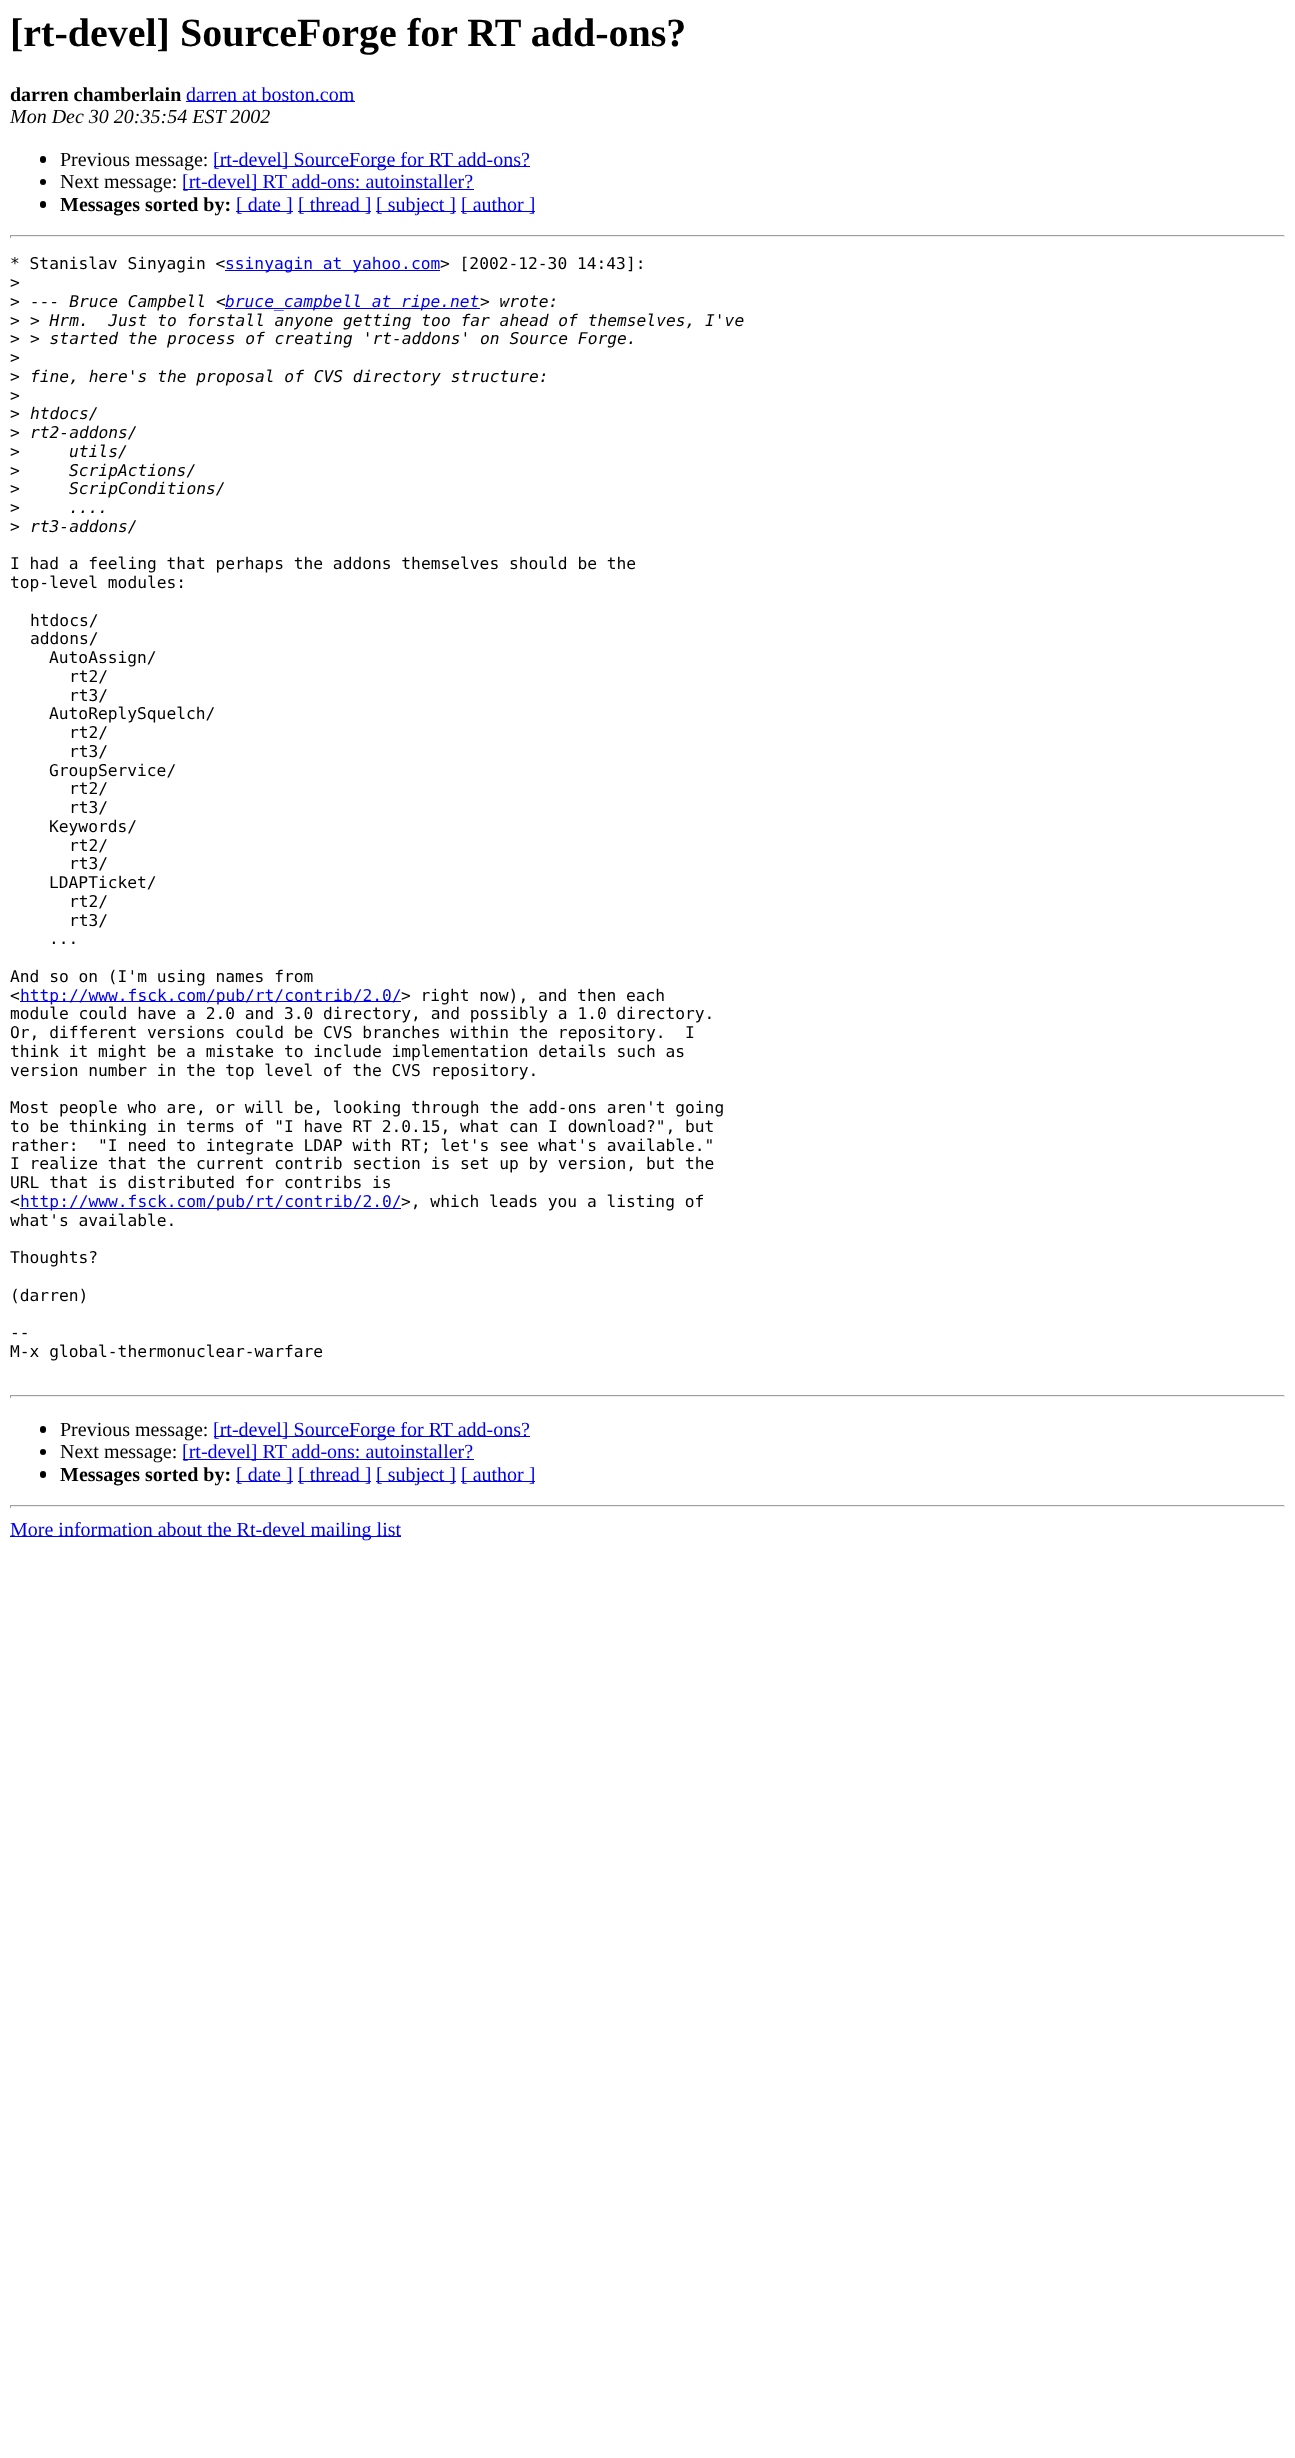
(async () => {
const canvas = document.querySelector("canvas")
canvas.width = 1295
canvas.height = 2458
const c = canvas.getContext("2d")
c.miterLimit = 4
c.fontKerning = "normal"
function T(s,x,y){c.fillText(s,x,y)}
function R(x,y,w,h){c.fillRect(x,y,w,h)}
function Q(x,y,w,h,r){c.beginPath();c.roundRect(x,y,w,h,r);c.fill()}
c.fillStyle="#fff"
R(0,0,1295,2458)
c.font="bold 40px Liberation Serif"
c.fillStyle="#000"
T("[rt-devel] SourceForge for RT add-ons?",10,46)
c.font="bold 20px Liberation Serif"
T("darren chamberlain",10,101)
c.fillStyle="#00e"
R(186,101,169,1)
c.font="20px Liberation Serif"
T("darren at boston.com",186,101)
c.font="italic 20px Liberation Serif"
c.fillStyle="#000"
T("Mon Dec 30 20:35:54 EST 2002",10,123)
Q(40,156,6,7,3)
c.font="20px Liberation Serif"
T("Previous message:",60,166)
c.fillStyle="#00e"
R(214,166,316,1)
T("[rt-devel] SourceForge for RT add-ons?",213,166)
c.fillStyle="#000"
c.beginPath()
c.arc(43,182,3,0,7)
c.fill()
T("Next message:",60,188)
c.fillStyle="#00e"
R(183,189,291,1)
T("[rt-devel] RT add-ons: autoinstaller?",182,188)
c.fillStyle="#000"
Q(40,201,6,7,3)
c.font="bold 20px Liberation Serif"
T("Messages sorted by:",60,211)
c.fillStyle="#00e"
R(236,211,57,1)
c.font="20px Liberation Serif"
T("[ date ]",236,211)
R(298,211,73,1)
T("[ thread ]",298,211)
R(376,211,80,1)
T("[ subject ]",376,211)
R(461,211,74,1)
T("[ author ]",461,211)
c.fillStyle="#9f9f9f"
R(10,235,1275,1)
c.fillStyle="#eee"
R(1284,235,1,3)
R(10,236,1275,1)
c.fillStyle="#9f9f9f"
R(10,235,1,3)
c.font="16.25px DejaVu Sans Mono"
c.fillStyle="#000"
T("* Stanislav Sinyagin <",10,269)
c.fillStyle="#00e"
R(225,270,215,1)
T("ssinyagin at yahoo.com",225,269)
c.fillStyle="#000"
T("> [2002-12-30 14:43]:",440,269)
T(">",10,288)
T(">",10,307)
c.font="italic 16.25px DejaVu Sans Mono"
T("--- Bruce Campbell <",30,307)
c.fillStyle="#00e"
R(225,308,255,1)
T("bruce_campbell at ripe.net",225,307)
c.fillStyle="#000"
T("> wrote:",480,307)
c.font="16.25px DejaVu Sans Mono"
T(">",10,326)
c.font="italic 16.25px DejaVu Sans Mono"
T("> Hrm.  Just to forstall anyone getting too far ahead of themselves, I've",30,326)
c.font="16.25px DejaVu Sans Mono"
T(">",10,344)
c.font="italic 16.25px DejaVu Sans Mono"
T("> started the process of creating 'rt-addons' on Source Forge.",30,344)
c.font="16.25px DejaVu Sans Mono"
T(">",10,363)
T(">",10,382)
c.font="italic 16.25px DejaVu Sans Mono"
T("fine, here's the proposal of CVS directory structure:",30,382)
c.font="16.25px DejaVu Sans Mono"
T(">",10,401)
T(">",10,419)
c.font="italic 16.25px DejaVu Sans Mono"
T("htdocs/",30,419)
c.font="16.25px DejaVu Sans Mono"
T(">",10,438)
c.font="italic 16.25px DejaVu Sans Mono"
T("rt2-addons/",30,438)
c.font="16.25px DejaVu Sans Mono"
T(">",10,457)
c.font="italic 16.25px DejaVu Sans Mono"
T("utils/",69,457)
c.font="16.25px DejaVu Sans Mono"
T(">",10,476)
c.font="italic 16.25px DejaVu Sans Mono"
T("ScripActions/",69,476)
c.font="16.25px DejaVu Sans Mono"
T(">",10,494)
c.font="italic 16.25px DejaVu Sans Mono"
T("ScripConditions/",69,494)
c.font="16.25px DejaVu Sans Mono"
T(">",10,513)
c.font="italic 16.25px DejaVu Sans Mono"
T("....",69,513)
c.font="16.25px DejaVu Sans Mono"
T(">",10,532)
c.font="italic 16.25px DejaVu Sans Mono"
T("rt3-addons/",30,532)
c.font="16.25px DejaVu Sans Mono"
T("I had a feeling that perhaps the addons themselves should be the",10,569)
T("top-level modules:",10,588)
T("htdocs/",30,626)
T("addons/",30,644)
T("AutoAssign/",49,663)
T("rt2/",69,682)
T("rt3/",69,701)
T("AutoReplySquelch/",49,719)
T("rt2/",69,738)
T("rt3/",69,757)
T("GroupService/",49,776)
T("rt2/",69,794)
T("rt3/",69,813)
T("Keywords/",49,832)
T("rt2/",69,851)
T("rt3/",69,869)
T("LDAPTicket/",49,888)
T("rt2/",69,907)
T("rt3/",69,926)
T("...",49,944)
T("And so on (I'm using names from",10,982)
T("<",10,1001)
c.fillStyle="#00e"
R(20,1001,381,1)
T("http://www.fsck.com/pub/rt/contrib/2.0/",20,1001)
c.fillStyle="#000"
T("> right now), and then each",401,1001)
T("module could have a 2.0 and 3.0 directory, and possibly a 1.0 directory.",10,1019)
T("Or, different versions could be CVS branches within the repository.  I",10,1038)
T("think it might be a mistake to include implementation details such as",10,1057)
T("version number in the top level of the CVS repository.",10,1076)
T("Most people who are, or will be, looking through the add-ons aren't going",10,1113)
T("to be thinking in terms of \"I have RT 2.0.15, what can I download?\", but",10,1132)
T("rather:  \"I need to integrate LDAP with RT; let's see what's available.\"",10,1151)
T("I realize that the current contrib section is set up by version, but the",10,1169)
T("URL that is distributed for contribs is",10,1188)
T("<",10,1207)
c.fillStyle="#00e"
R(20,1208,381,1)
T("http://www.fsck.com/pub/rt/contrib/2.0/",20,1207)
c.fillStyle="#000"
T(">, which leads you a listing of",401,1207)
T("what's available.",10,1226)
T("Thoughts?",10,1263)
T("(darren)",10,1301)
T("--",10,1338)
T("M-x global-thermonuclear-warfare",10,1357)
c.fillStyle="#9f9f9f"
R(10,1395,1275,1)
c.fillStyle="#eee"
R(1284,1395,1,3)
R(10,1396,1275,1)
c.fillStyle="#9f9f9f"
R(10,1395,1,3)
c.fillStyle="#000"
Q(40,1426,6,7,3)
c.font="20px Liberation Serif"
T("Previous message:",60,1436)
c.fillStyle="#00e"
R(214,1436,316,1)
T("[rt-devel] SourceForge for RT add-ons?",213,1436)
c.fillStyle="#000"
c.beginPath()
c.arc(43,1452,3,0,7)
c.fill()
T("Next message:",60,1458)
c.fillStyle="#00e"
R(183,1459,291,1)
T("[rt-devel] RT add-ons: autoinstaller?",182,1458)
c.fillStyle="#000"
Q(40,1471,6,7,3)
c.font="bold 20px Liberation Serif"
T("Messages sorted by:",60,1481)
c.fillStyle="#00e"
R(236,1481,57,1)
c.font="20px Liberation Serif"
T("[ date ]",236,1481)
R(298,1481,73,1)
T("[ thread ]",298,1481)
R(376,1481,80,1)
T("[ subject ]",376,1481)
R(461,1481,74,1)
T("[ author ]",461,1481)
c.fillStyle="#9f9f9f"
R(10,1505,1275,1)
c.fillStyle="#eee"
R(1284,1505,1,3)
R(10,1506,1275,1)
c.fillStyle="#9f9f9f"
R(10,1505,1,3)
c.fillStyle="#00e"
R(10,1536,391,1)
T("More information about the Rt-devel mailing list",10,1536)
})()
